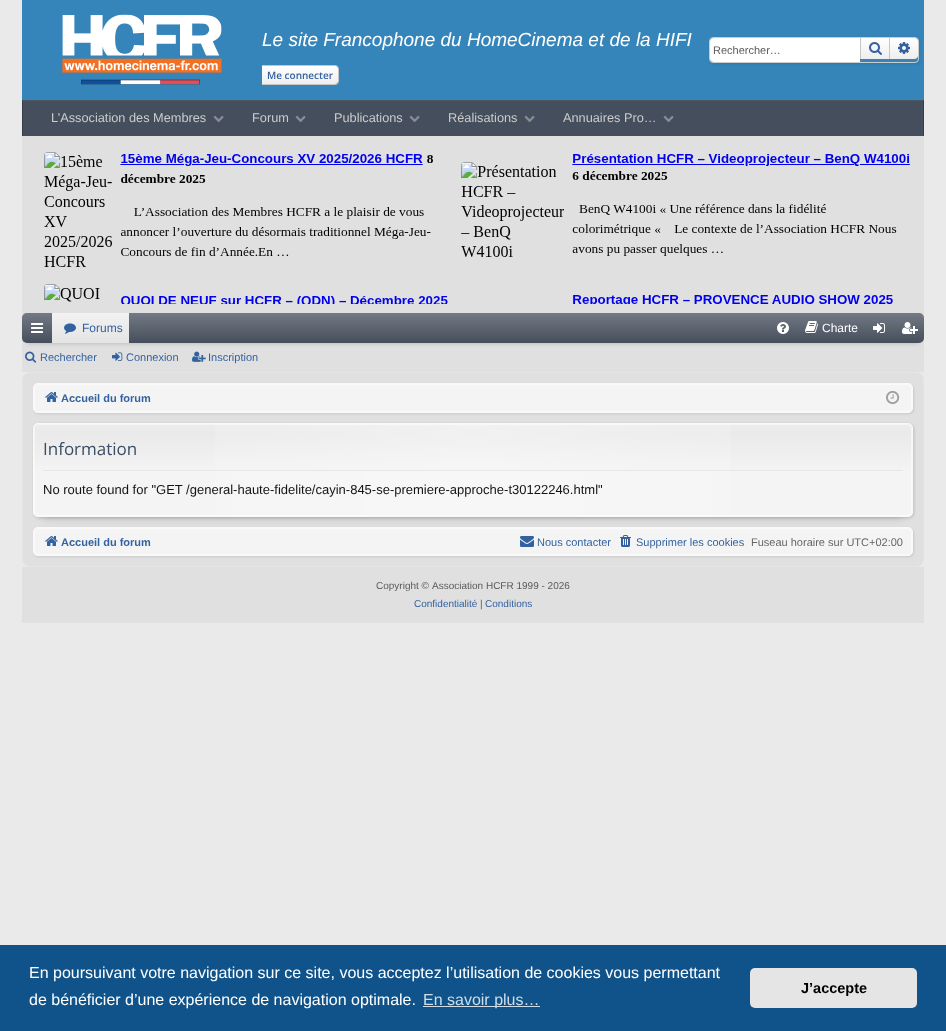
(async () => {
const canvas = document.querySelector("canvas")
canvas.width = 946
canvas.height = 1031
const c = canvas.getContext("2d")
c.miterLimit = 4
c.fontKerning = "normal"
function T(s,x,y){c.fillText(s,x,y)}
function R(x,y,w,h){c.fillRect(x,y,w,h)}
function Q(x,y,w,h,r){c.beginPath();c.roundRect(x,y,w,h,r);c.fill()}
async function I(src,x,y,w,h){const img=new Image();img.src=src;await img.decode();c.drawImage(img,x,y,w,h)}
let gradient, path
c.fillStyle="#eaeaea"
R(0,0,946,1031)
c.fillStyle="#e0e0e0"
R(22,136,902,236)
c.fillStyle="#3585ba"
R(22,0,902,100)
await I("1.png",62,14,160,71)
c.font="italic 19px Liberation Sans"
c.fillStyle="#fff"
T("Le site Francophone du HomeCinema et de la HIFI",262,46)
c.fillStyle="#eee"
c.beginPath()
c.roundRect(262,66,76,18,[0,3,3,0])
c.fill()
gradient = c.createLinearGradient(300,66,300,84)
gradient.addColorStop(0,"#fff")
gradient.addColorStop(1,"#ffffff00")
c.fillStyle = gradient
c.beginPath()
c.roundRect(262,66,76,18,[0,3,3,0])
c.fill()
c.fillStyle="#c6c6c6"
path = new Path2D("M262 65h73c2 0 4 2 4 4v12c0 2-2 4-4 4h-73zm0 1h73c2 0 3 1 3 3v12c0 2-1 3-3 3h-73z")
c.fill(path,"evenodd")
c.font="600 10px Open Sans"
c.fillStyle="#3462a0"
T("Me connecter",267,79)
c.save()
path = new Path2D("M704 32h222v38h-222zm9 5h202c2 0 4 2 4 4v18c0 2-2 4-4 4h-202c-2 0-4-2-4-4v-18c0-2 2-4 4-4z")
c.clip(path,"evenodd")
c.fillStyle="#0000001a"
c.filter="blur(1.5px)"
c.beginPath()
c.roundRect(710,38,210,26,4)
c.fill()
c.filter="none"
c.restore()
c.beginPath()
c.roundRect(709.5,37.5,209,25,3.5)
c.strokeStyle="#ccc"
c.stroke()
c.fillStyle="#fff"
c.beginPath()
c.roundRect(710,38,150,24,[4,0,0,4])
c.fill()
c.font="11px Liberation Sans"
c.fillStyle="#5b5b5b"
T("Rechercher…",713,54)
gradient = c.createLinearGradient(875,38,875,59)
gradient.addColorStop(0,"#fff")
gradient.addColorStop(1,"#eee")
c.fillStyle = gradient
R(861,38,28,21)
c.fillStyle="#c6c6c6"
R(889,38,1,21)
R(860,38,1,21)
await I("2.png",869,42,13,13)
c.fillStyle="#eee"
c.beginPath()
c.roundRect(890,38,28,21,[0,4,4,0])
c.fill()
gradient = c.createLinearGradient(904,38,904,59)
gradient.addColorStop(0,"#fff")
gradient.addColorStop(1,"#ffffff00")
c.fillStyle = gradient
c.beginPath()
c.roundRect(890,38,28,21,[0,4,4,0])
c.fill()
await I("3.png",898,42,12,12)
c.fillStyle="#454e5c"
R(23,101,900,35)
c.fillStyle="#4e5764"
R(22,100,902,1)
c.fillStyle="#373e4a"
R(923,100,1,36)
c.fillStyle="#414853"
R(923,100,1,1)
c.fillStyle="#373e4a"
R(22,100,1,36)
c.fillStyle="#414853"
R(22,100,1,1)
c.font="12.75px Liberation Sans"
c.fillStyle="#ccc"
T("L’Association des Membres",51,122)
await I("4.png",213,115,11,8)
T("Forum",252,122)
await I("4.png",295,115,11,8)
T("Publications",334,122)
await I("4.png",409,115,11,8)
T("Réalisations",448,122)
await I("4.png",524,115,11,8)
T("Annuaires Pro…",563,122)
await I("4.png",663,115,11,8)
await I("5.png",44,152,866,152)
c.fillStyle="#00000033"
c.filter="blur(2.5px)"
c.beginPath()
c.rect(27,323,892,20)
c.fill()
c.filter="none"
c.fillStyle="#454e5c"
Q(22,313,902,30,5)
gradient = c.createLinearGradient(473,313,473,343)
gradient.addColorStop(0,"#ffffff40")
gradient.addColorStop(1,"#ffffff00")
c.fillStyle = gradient
Q(22,313,902,30,5)
await I("6.png",31,323,12,10)
gradient = c.createLinearGradient(91,313,91,343)
gradient.addColorStop(0,"#f2f2f2")
gradient.addColorStop(1,"#e4e4e4")
c.fillStyle = gradient
R(52,313,77,30)
await I("7.png",64,323,12,11)
c.font="12px Liberation Sans"
c.fillStyle="#3462a0"
T("Forums",82,332)
await I("8.png",777,322,12,12)
await I("9.png",805,321,13,12)
c.fillStyle="#fff"
T("Charte",822,332)
await I("10.png",873,323,12,10)
await I("11.png",902,322,16,12)
await I("12.png",25,351,12,12)
c.font="11px Liberation Sans"
c.fillStyle="#3462a0"
T("Rechercher",40,361)
await I("13.png",112,352,11,9)
T("Connexion",126,361)
await I("14.png",192,351,14,11)
T("Inscription",208,361)
c.fillStyle="#e0e0e0"
c.beginPath()
c.roundRect(22.5,372.5,901,194,7.5)
c.fill()
c.strokeStyle="#e4e4e4"
c.stroke()
c.fillStyle="#0000001a"
c.filter="blur(1px)"
c.beginPath()
c.roundRect(34,384,880,30,5)
c.fill()
c.filter="none"
c.fillStyle="#f4f4f4"
Q(33,383,880,30,5)
c.beginPath()
c.roundRect(34.5,384.5,877,27,3.5)
c.strokeStyle="#fafafa"
c.stroke()
c.beginPath()
c.roundRect(33.5,383.5,879,29,4.5)
c.strokeStyle="#f9f9f9"
c.stroke()
await I("15.png",45,392,13,10)
c.font="bold 11px Liberation Sans"
c.fillStyle="#3462a0"
T("Accueil du forum",61,402)
await I("16.png",886,390,14,15)
c.fillStyle="#00000033"
c.filter="blur(5px)"
c.beginPath()
c.rect(43,443,860,74)
c.fill()
c.filter="none"
c.fillStyle="#00000026"
c.filter="blur(1.5px)"
c.beginPath()
c.roundRect(34,424,880,94,5)
c.fill()
c.filter="none"
c.fillStyle="#f4f4f4"
Q(33,423,880,94,5)
c.save()
c.beginPath()
c.roundRect(33,423,880,94,5)
c.clip()
gradient = c.createLinearGradient(473,424,473,516)
gradient.addColorStop(0,"#cccccc33")
gradient.addColorStop(.11,"#cccccc40")
gradient.addColorStop(.54,"#cccccc00")
c.fillStyle = gradient
R(33,424,880,46)
c.restore()
gradient = c.createLinearGradient(34,470,912,470)
gradient.addColorStop(0,"#ffffff00")
gradient.addColorStop(.5,"#ffffff4d")
gradient.addColorStop(1,"#ffffff00")
c.fillStyle = gradient
R(215,424,516,92)
c.beginPath()
c.roundRect(34.5,424.5,877,91,3.5)
c.strokeStyle="#ffffff80"
c.stroke()
c.beginPath()
c.roundRect(33.5,423.5,879,93,4.5)
c.strokeStyle="#f9f9f9"
c.stroke()
c.fillStyle="#e7e7e7"
R(43,470,860,1)
c.font="17px Open Sans"
c.fillStyle="#3c4d65"
T("Information",43,455)
c.font="13px Liberation Sans"
c.fillStyle="#141414"
T("No route found for \"GET /general-haute-fidelite/cayin-845-se-premiere-approche-t30122246.html\"",43,494)
c.fillStyle="#0000001a"
c.filter="blur(1px)"
c.beginPath()
c.roundRect(34,528,880,29,5)
c.fill()
c.filter="none"
c.fillStyle="#f4f4f4"
Q(33,527,880,29,5)
c.beginPath()
c.roundRect(34.5,528.5,877,26,3.5)
c.strokeStyle="#fafafa"
c.stroke()
c.beginPath()
c.roundRect(33.5,527.5,879,28,4.5)
c.strokeStyle="#f9f9f9"
c.stroke()
await I("15.png",45,536,13,10)
c.font="bold 11px Liberation Sans"
c.fillStyle="#3462a0"
T("Accueil du forum",61,546)
await I("17.png",520,536,14,11)
c.font="11px Liberation Sans"
T("Nous contacter",537,546)
await I("18.png",620,535,11,12)
T("Supprimer les cookies",636,546)
c.fillStyle="#666"
T("Fuseau horaire sur UTC+02:00",751,546)
c.fillStyle="#e0e0e0"
R(22,567,902,56)
c.font="10px Liberation Sans"
c.fillStyle="#5b5b5b"
T("Copyright ©",376,589)
T("Association HCFR 1999 - 2026",432,589)
c.fillStyle="#3462a0"
T("Confidentialité",414,607)
c.fillStyle="#5b5b5b"
T("|",480,607)
c.fillStyle="#3462a0"
T("Conditions",485,607)
c.fillStyle="#0f538a"
R(0,945,946,86)
c.font="16px Liberation Sans"
c.fillStyle="#fff"
T("En poursuivant votre navigation sur ce site, vous acceptez l’utilisation de cookies vous permettant",29,978)
T("de bénéficier d’une expérience de navigation optimale.",29,1005)
c.fillStyle="#cfdde8"
R(423,1006,117,1)
T("En savoir plus…",423,1005)
c.fillStyle="#e5e5e5"
Q(750,968,167,40,5)
c.font="bold 14.5px Liberation Sans"
c.fillStyle="#000"
T("J’accepte",801,993)
})()
